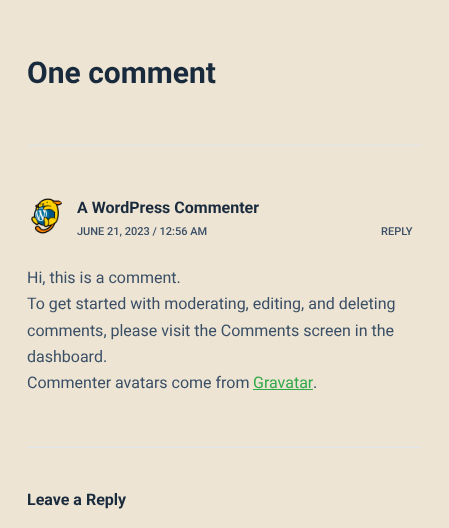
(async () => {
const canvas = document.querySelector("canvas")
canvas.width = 449
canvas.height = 528
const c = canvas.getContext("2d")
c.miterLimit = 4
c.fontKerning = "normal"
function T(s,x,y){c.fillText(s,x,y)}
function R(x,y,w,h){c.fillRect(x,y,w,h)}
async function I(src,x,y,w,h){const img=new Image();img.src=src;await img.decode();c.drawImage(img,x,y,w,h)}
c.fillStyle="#ede4d3"
R(0,0,449,528)
c.font="bold 30px Roboto"
c.fillStyle="#192a3d"
T("One comment",27,83)
c.fillStyle="#e1e8ed"
R(27,145,395,1)
await I("1.png",31,198,32,36)
c.font="bold 16px Roboto"
c.fillStyle="#192a3d"
T("A WordPress Commenter",77,213)
c.font="500 11px Roboto"
c.fillStyle="#3a4f66"
T("JUNE 21, 2023 / 12:56 AM",77,235)
T("REPLY",381,235)
c.font="16px Roboto"
T("Hi, this is a comment.",27,283)
T("To get started with moderating, editing, and deleting",27,309)
T("comments, please visit the Comments screen in the",27,336)
T("dashboard.",27,362)
T("Commenter avatars come from",27,388)
c.fillStyle="#31a849"
T("Gravatar",253,388)
R(253,389,60,1)
c.fillStyle="#3a4f66"
T(".",313,388)
c.fillStyle="#e1e8ed"
R(27,447,395,1)
c.font="bold 16px Roboto"
c.fillStyle="#192a3d"
T("Leave a Reply",27,505)
})()
